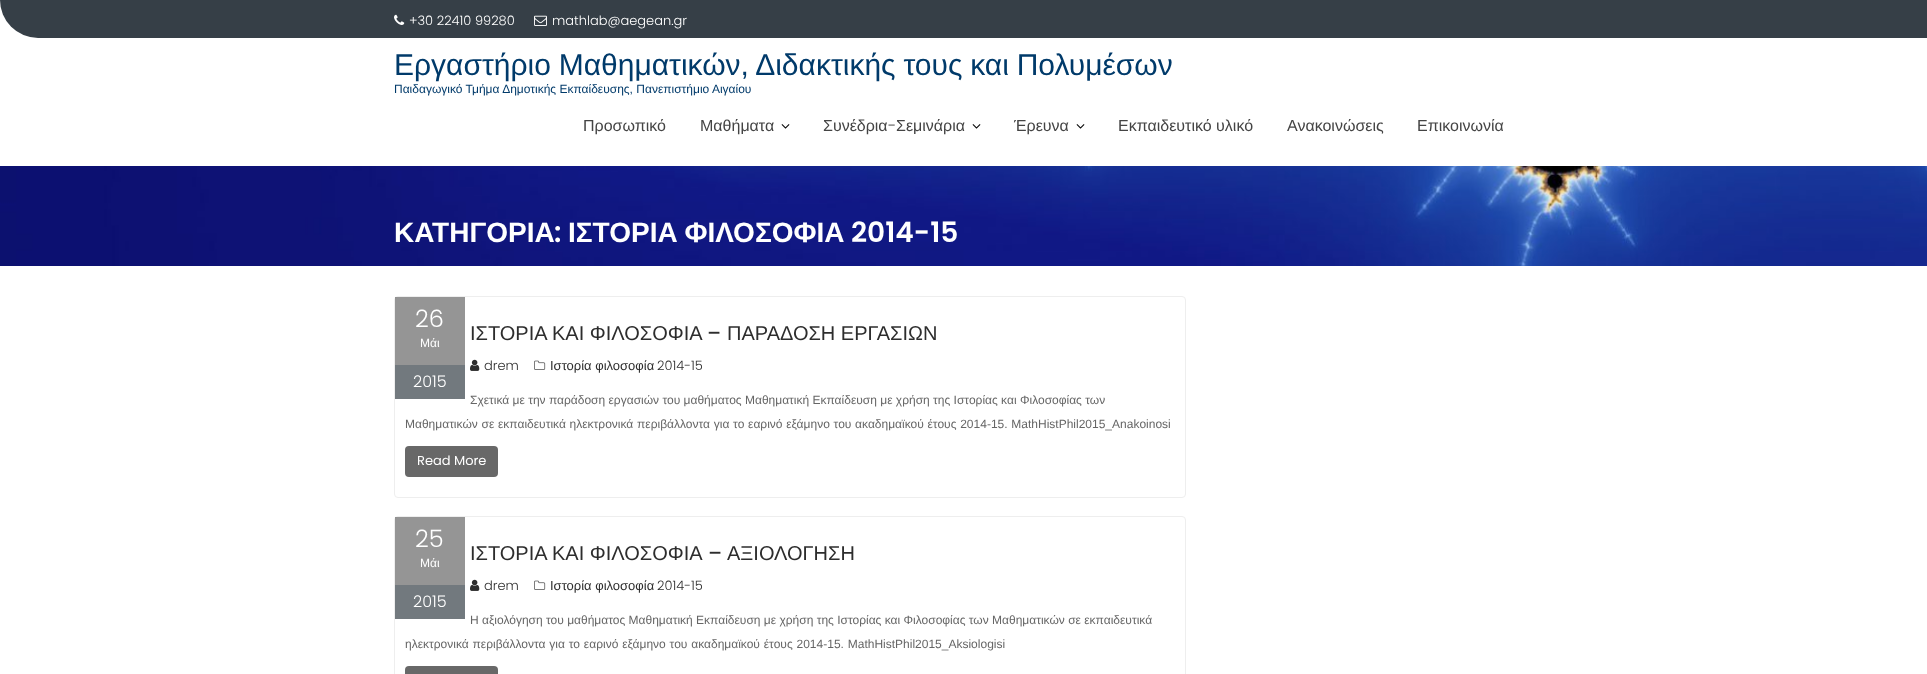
(async () => {
const canvas = document.querySelector("canvas")
canvas.width = 1927
canvas.height = 674
const c = canvas.getContext("2d")
c.miterLimit = 4
c.fontKerning = "normal"
function T(s,x,y){c.fillText(s,x,y)}
function R(x,y,w,h){c.fillRect(x,y,w,h)}
function Q(x,y,w,h,r){c.beginPath();c.roundRect(x,y,w,h,r);c.fill()}
async function I(src,x,y,w,h){const img=new Image();img.src=src;await img.decode();c.drawImage(img,x,y,w,h)}
c.fillStyle="#fff"
R(0,0,1927,674)
c.fillStyle="#363f47"
c.beginPath()
c.roundRect(0,0,1927,38,[0,0,0,38])
c.fill()
await I("1.png",394,14,11,11)
c.font="300 13px Poppins"
c.fillStyle="#fff"
T("+30 22410 99280",409,25)
await I("2.png",534,15,13,11)
T("mathlab@aegean.gr",552,25)
c.wordSpacing="-0.5px"
c.font="30px Liberation Sans"
c.fillStyle="#003a6a"
T("Εργαστήριο Μαθηματικών, Διδακτικής τους και Πολυμέσων",394,75)
c.wordSpacing="0px"
c.font="12px Liberation Sans"
T("Παιδαγωγικό Τμήμα Δημοτικής Εκπαίδευσης, Πανεπιστήμιο Αιγαίου",394,93)
c.font="16px Liberation Sans"
c.fillStyle="#444"
T("Προσωπικό",583,131)
T("Μαθήματα",700,131)
await I("3.png",781,124,9,5)
T("Συνέδρια",823,131)
c.font="300 16px Poppins"
T("-",888,131)
c.font="16px Liberation Sans"
T("Σεμινάρια",896,131)
await I("3.png",972,124,9,5)
T("Έρευνα",1014,131)
await I("3.png",1076,124,9,5)
T("Εκπαιδευτικό υλικό",1118,131)
T("Ανακοινώσεις",1287,131)
T("Επικοινωνία",1417,131)
await I("4.png",0,166,1927,100)
c.font="bold 28px Liberation Sans"
c.fillStyle="#fff"
T("ΚΑΤΗΓΟΡΙΑ",394,242)
c.font="600 28px Poppins"
T(":",554,242)
c.wordSpacing="-1px"
c.font="bold 28px Liberation Sans"
T("ΙΣΤΟΡΙΑ ΦΙΛΟΣΟΦΙΑ",568,242)
c.wordSpacing="0px"
c.font="600 28px Poppins"
T("2014-15",851,242)
c.beginPath()
c.roundRect(394.5,296.5,791,201,3.5)
c.strokeStyle="#eee"
c.stroke()
c.fillStyle="#686868b3"
R(395,297,70,68)
c.font="300 24px Poppins"
c.fillStyle="#fff"
T("26",415,327)
c.font="12px Liberation Sans"
T("Μάι",420,347)
c.fillStyle="#72797e"
R(395,365,70,34)
c.font="300 16px Poppins"
c.fillStyle="#fff"
T("2015",413,387)
c.font="20px Liberation Sans"
c.fillStyle="#2d2d2d"
T("ΙΣΤΟΡΙΑ ΚΑΙ ΦΙΛΟΣΟΦΙΑ",470,340)
c.font="500 20px Poppins"
T("–",707,340)
c.font="20px Liberation Sans"
T("ΠΑΡΑΔΟΣΗ ΕΡΓΑΣΙΩΝ",727,340)
await I("5.png",470,359,10,12)
c.font="300 13px Poppins"
T("drem",484,370)
await I("6.png",534,360,12,10)
c.font="13px Liberation Sans"
T("Ιστορία φιλοσοφία",550,370)
c.font="300 13px Poppins"
T("2014-15",657,370)
c.font="12px Liberation Sans"
c.fillStyle="#666"
T("Σχετικά με την παράδοση εργασιών του μαθήματος Μαθηματική Εκπαίδευση με χρήση της Ιστορίας και Φιλοσοφίας των",470,404)
c.wordSpacing="0.4px"
T("Μαθηματικών σε εκπαιδευτικά ηλεκτρονικά περιβάλλοντα για το εαρινό εξάμηνο του ακαδημαϊκού έτους 2014-15. MathHistPhil2015_Anakoinosi",405,428)
c.fillStyle="#686868"
Q(405,446,93,31,4)
c.wordSpacing="0px"
c.font="13px Poppins"
c.fillStyle="#fff"
T("Read More",417,465)
c.beginPath()
c.roundRect(394.5,516.5,791,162,3.5)
c.stroke()
c.fillStyle="#686868b3"
R(395,517,70,68)
c.font="300 24px Poppins"
c.fillStyle="#fff"
T("25",415,547)
c.font="12px Liberation Sans"
T("Μάι",420,567)
c.fillStyle="#72797e"
R(395,585,70,34)
c.font="300 16px Poppins"
c.fillStyle="#fff"
T("2015",413,607)
c.font="20px Liberation Sans"
c.fillStyle="#2d2d2d"
T("ΙΣΤΟΡΙΑ ΚΑΙ ΦΙΛΟΣΟΦΙΑ",470,560)
c.font="500 20px Poppins"
T("–",708,560)
c.font="20px Liberation Sans"
T("ΑΞΙΟΛΟΓΗΣΗ",727,560)
await I("5.png",470,579,10,12)
c.font="300 13px Poppins"
T("drem",484,590)
await I("6.png",534,580,12,10)
c.font="13px Liberation Sans"
T("Ιστορία φιλοσοφία",550,590)
c.font="300 13px Poppins"
T("2014-15",657,590)
c.font="12px Liberation Sans"
c.fillStyle="#666"
T("Η αξιολόγηση του μαθήματος Μαθηματική Εκπαίδευση με χρήση της Ιστορίας και Φιλοσοφίας των Μαθηματικών σε εκπαιδευτικά",470,624)
c.wordSpacing="0.5px"
T("ηλεκτρονικά περιβάλλοντα για το εαρινό εξάμηνο του ακαδημαϊκού έτους 2014-15. MathHistPhil2015_Aksiologisi",405,648)
c.fillStyle="#686868"
Q(405,666,93,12,4)
})()
